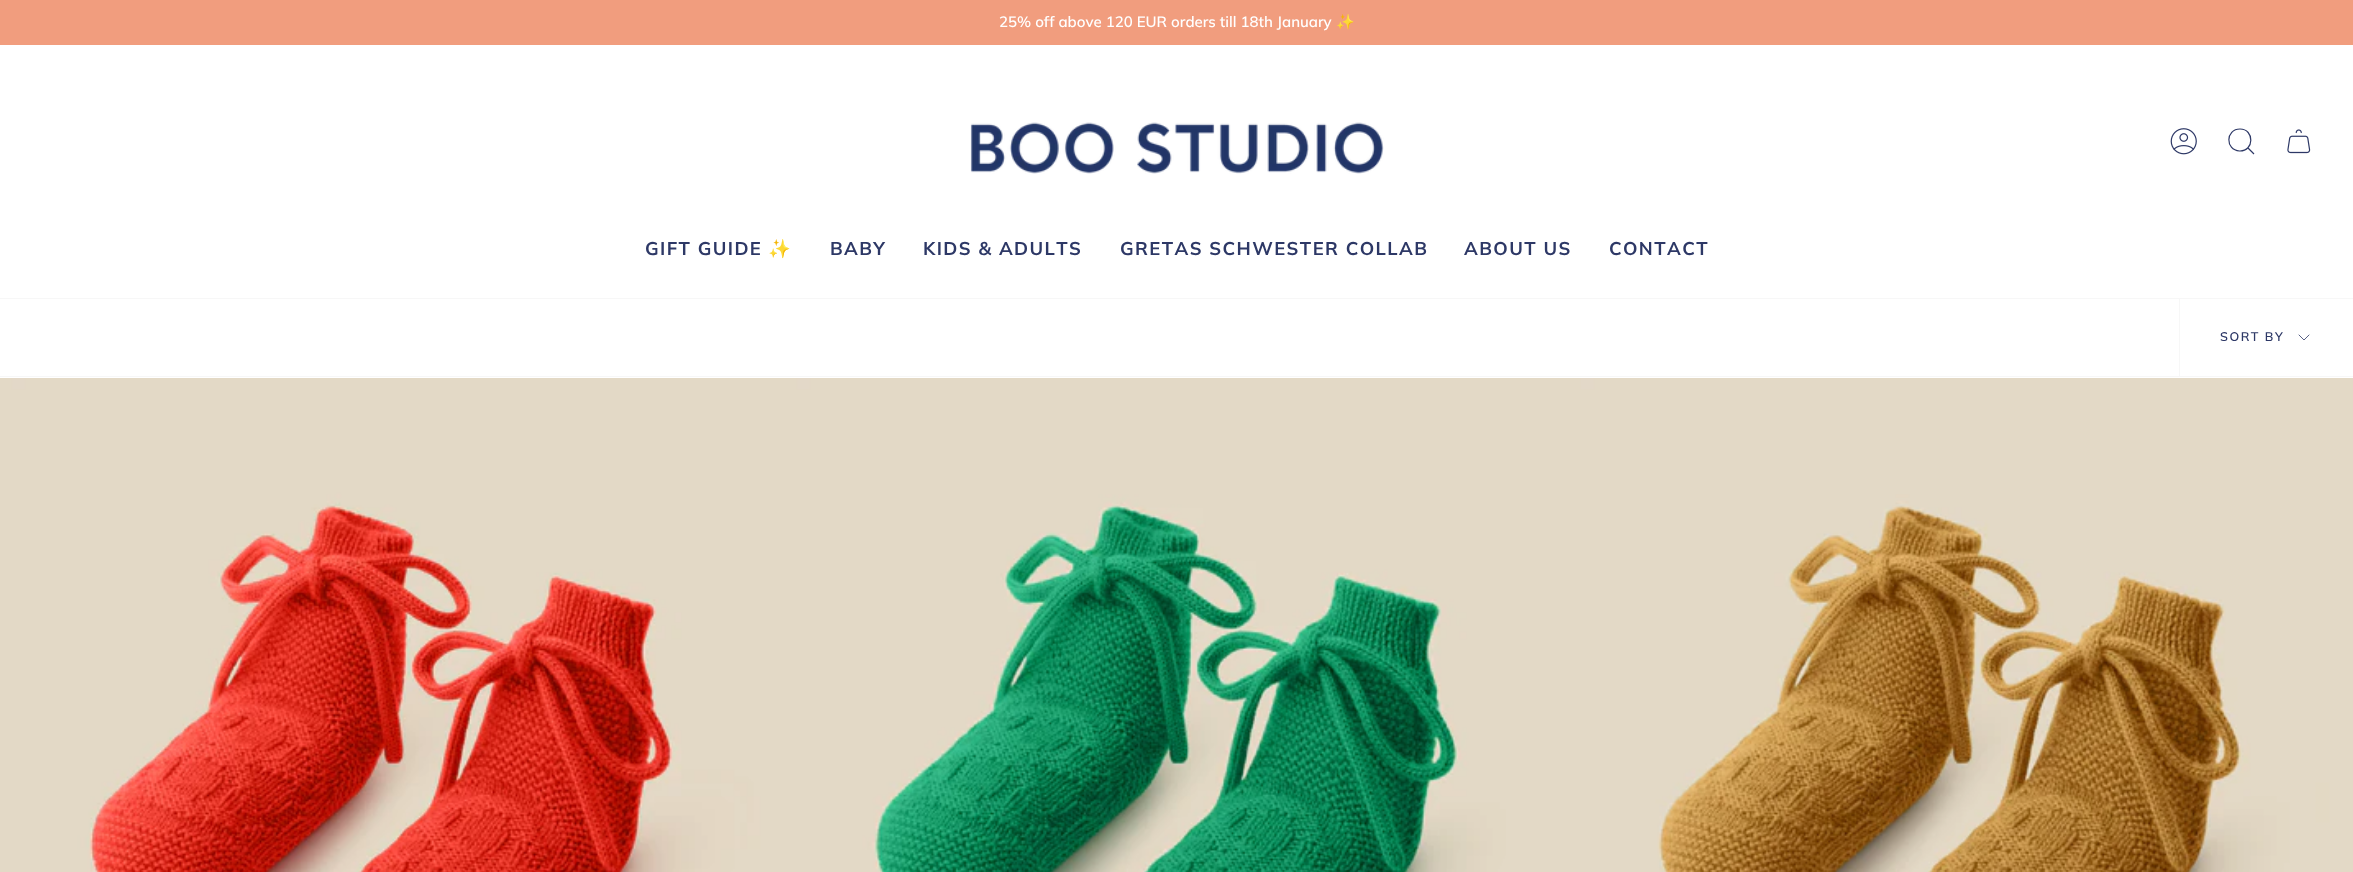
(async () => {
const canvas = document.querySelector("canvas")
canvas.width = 2353
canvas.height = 872
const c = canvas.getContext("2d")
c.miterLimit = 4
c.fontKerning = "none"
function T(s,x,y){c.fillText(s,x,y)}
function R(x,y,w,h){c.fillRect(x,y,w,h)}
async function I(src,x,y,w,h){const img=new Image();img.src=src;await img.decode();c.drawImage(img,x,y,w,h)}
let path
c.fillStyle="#fff"
R(0,0,2353,872)
c.fillStyle="#f19d7e"
R(0,0,2353,45)
c.font="600 15px Muli"
c.fillStyle="#fff"
T("25% off above 120 EUR orders till 18th January",999,27)
c.font="bold 15px Noto Color Emoji"
T("✨",1336,27)
await I("1.png",970,122,414,52)
await I("2.png",2170,128,27,27)
path = new Path2D("M2240 129c14.5 0 14.5 22.5-.5 22c-14.5-1-14-22 .5-22zm7.5 18.5l6.5 6.5")
c.strokeStyle="#2d3866"
c.lineWidth=1.2
c.stroke(path)
await I("3.png",2287,129,24,25)
c.letterSpacing="1.4px"
c.font="bold 18.4px Muli"
c.fillStyle="#2d3866"
T("GIFT GUIDE",645,255)
c.font="bold 18.4px Noto Color Emoji"
T("✨",768,255)
c.font="bold 18.4px Muli"
T("BABY",830,255)
T("KIDS & ADULTS",923,255)
T("GRETAS SCHWESTER COLLAB",1120,255)
T("ABOUT US",1464,255)
T("CONTACT",1609,255)
c.fillStyle="#f7f7f7"
R(0,298,2353,1)
R(0,376,2353,1)
R(2179,299,1,77)
c.letterSpacing="1.5px"
c.font="600 12.5px Muli"
c.fillStyle="#2d3866"
T("SORT BY",2220,341)
path = new Path2D("M2299 335l5 5l5-5")
c.lineWidth=0.8
c.lineCap="round"
c.lineJoin="round"
c.stroke(path)
await I("4.png",0,378,785,494)
await I("5.png",785,378,784,494)
await I("6.png",1569,378,784,494)
})()
